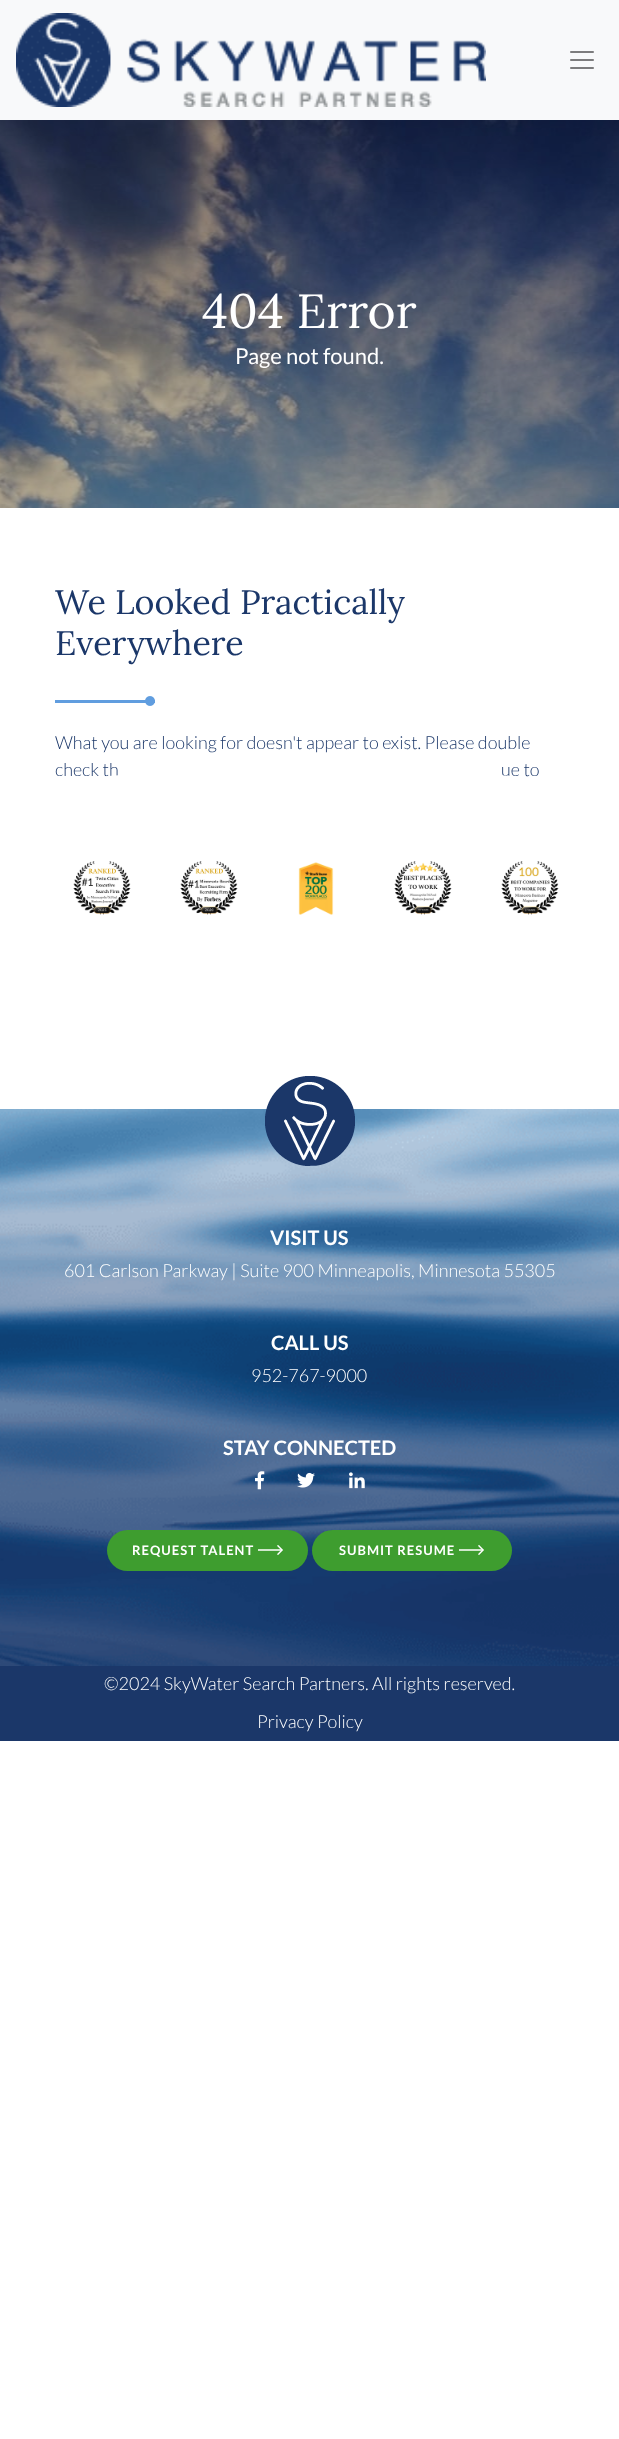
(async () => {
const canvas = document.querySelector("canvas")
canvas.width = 619
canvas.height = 2439
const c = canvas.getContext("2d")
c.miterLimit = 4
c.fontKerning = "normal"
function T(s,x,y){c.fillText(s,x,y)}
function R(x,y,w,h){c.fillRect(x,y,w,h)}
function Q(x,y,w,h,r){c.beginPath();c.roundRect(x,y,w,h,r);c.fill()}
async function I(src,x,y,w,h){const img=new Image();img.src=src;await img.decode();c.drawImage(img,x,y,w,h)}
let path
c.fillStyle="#fff"
R(0,0,619,2439)
c.fillStyle="#f8f9fa"
R(0,0,619,120)
await I("1.png",16,13,470,94)
await I("2.png",570,51,24,18)
await I("3.png",0,120,619,388)
c.font="48px Lora"
c.fillStyle="#fff"
T("404 Error",202,328)
c.font="22px Lato"
T("Page not found.",235,364)
c.font="34px Lora"
c.fillStyle="#1b3769"
T("We Looked Practically",55,614)
T("Everywhere",55,655)
await I("4.png",55,696,100,10)
c.font="300 18px Lato"
T("What you are looking for doesn't appear to exist. Please double",55,749)
T("check th",55,776)
T("ue to",501,776)
c.fillStyle="#fff"
path = new Path2D("M0 784v325h619v-325l-308-23z")
c.fill(path)
await I("5.png",73,861,58,54)
await I("6.png",180,861,58,54)
await I("7.png",298,862,36,53)
await I("8.png",394,861,58,54)
await I("9.png",501,861,58,54)
await I("10.png",0,1109,619,557)
await I("11.png",265,1076,90,90)
c.font="bold 20px Lato"
T("VISIT US",270,1245)
c.font="300 18px Lato"
T("601 Carlson Parkway | Suite 900 Minneapolis, Minnesota 55305",64,1277)
c.font="bold 20px Lato"
T("CALL US",271,1350)
c.font="300 18px Lato"
T("952-767-9000",251,1382)
c.font="bold 20px Lato"
T("STAY CONNECTED",223,1455)
await I("12.png",255,1471,10,19)
await I("13.png",297,1472,18,16)
await I("14.png",349,1472,16,17)
c.fillStyle="#3e9d2f"
Q(107,1530,201,41,20.5)
c.letterSpacing="1px"
c.font="bold 13px Lato"
c.fillStyle="#fff"
T("REQUEST TALENT",132,1555)
await I("15.png",258,1545,25,10)
c.fillStyle="#3e9d2f"
Q(312,1530,200,41,20.5)
c.fillStyle="#fff"
T("SUBMIT RESUME",339,1555)
await I("15.png",459,1545,25,10)
c.fillStyle="#1b3769"
R(0,1666,619,75)
c.letterSpacing="0px"
c.font="300 18px Lato"
c.fillStyle="#fff"
T("©2024 SkyWater Search Partners. All rights reserved.",104,1690)
T("Privacy Policy",257,1728)
})()
